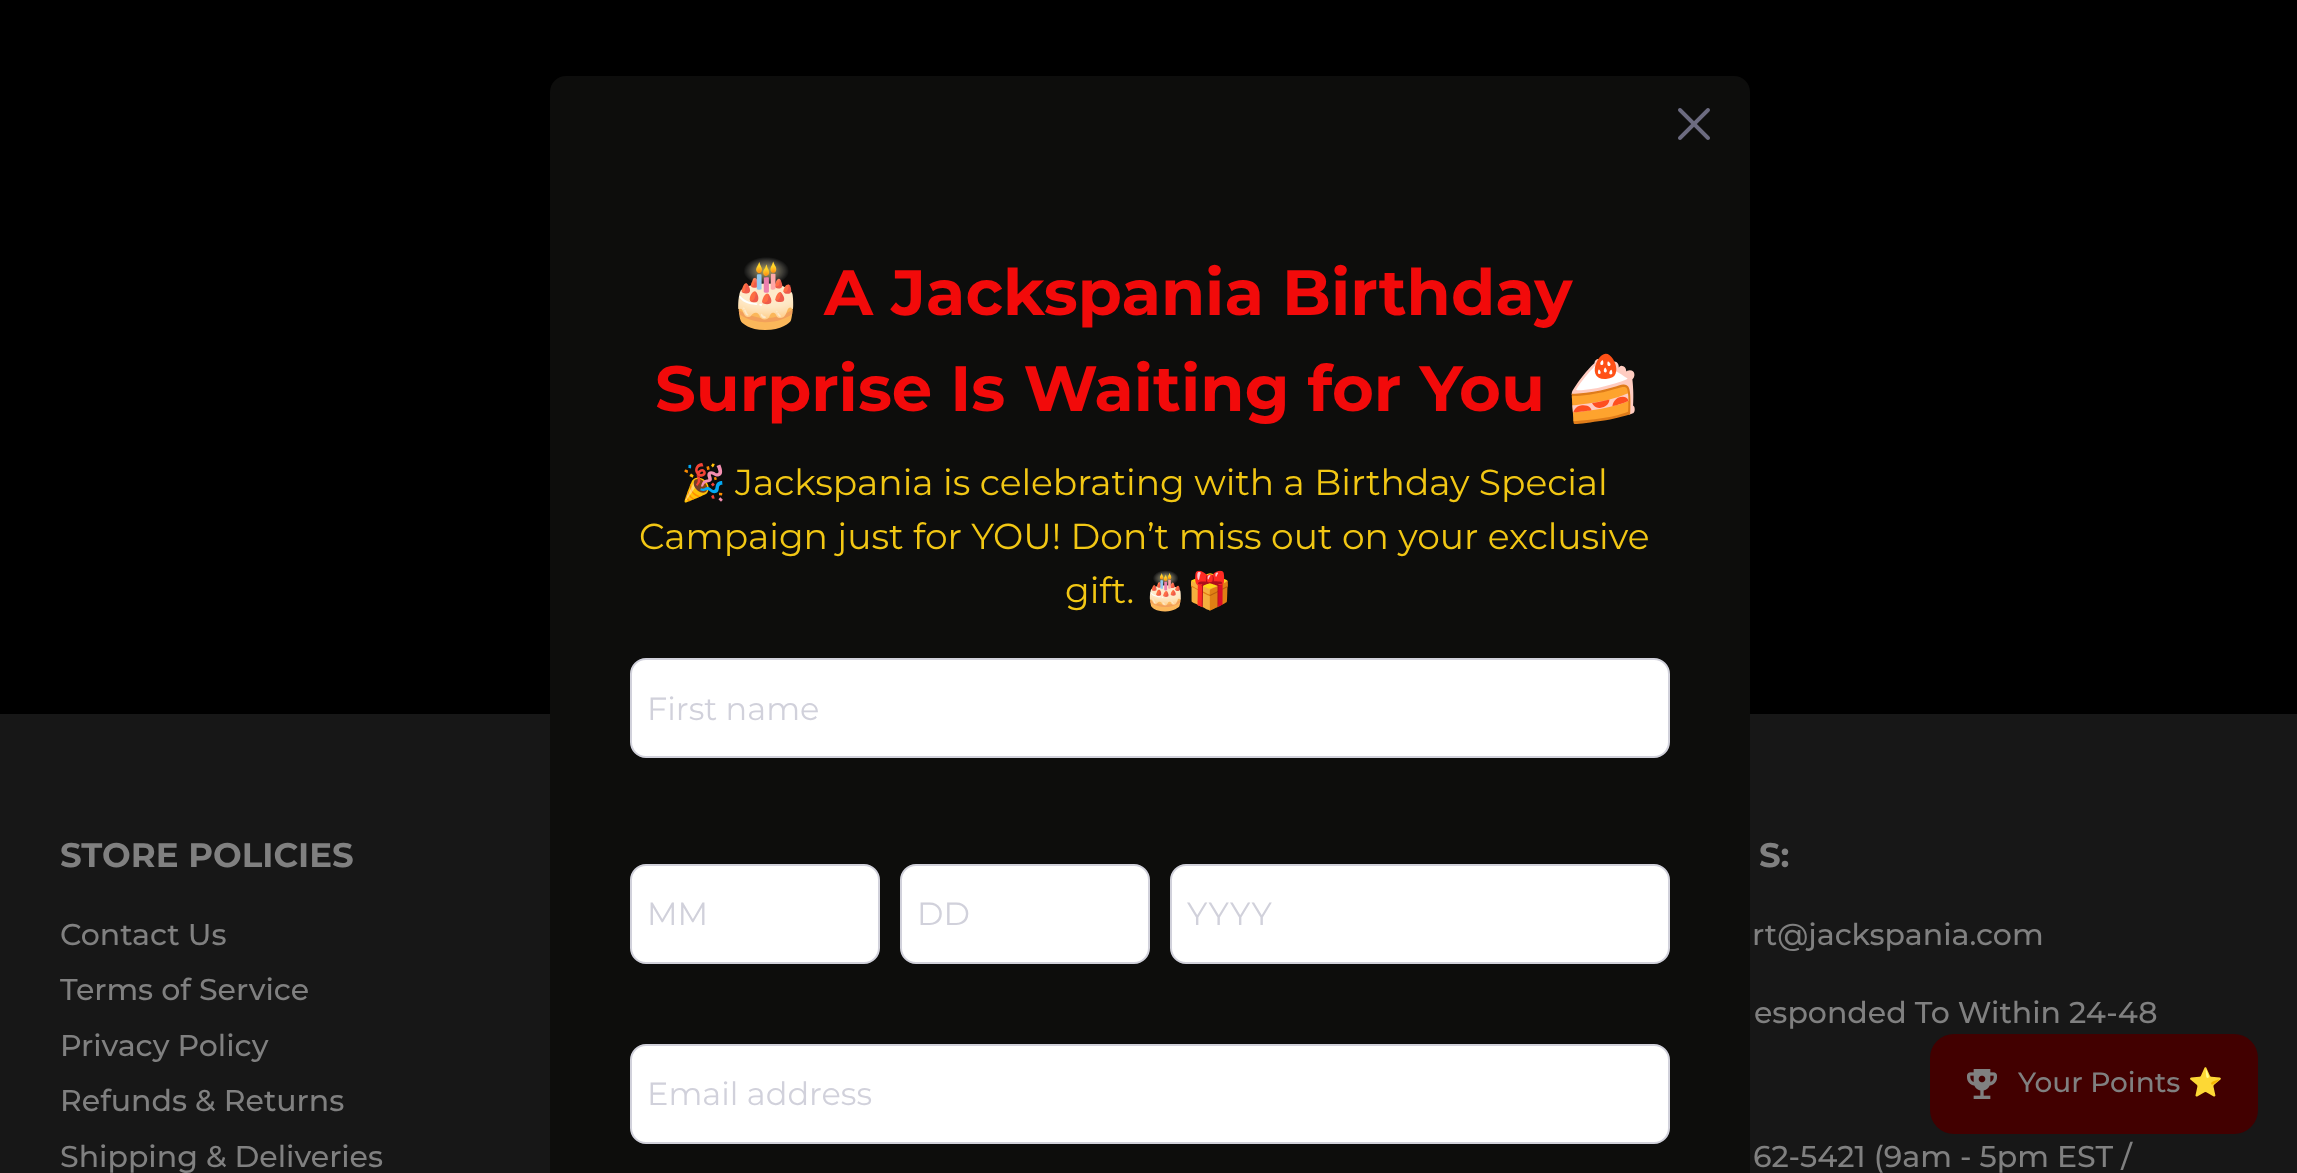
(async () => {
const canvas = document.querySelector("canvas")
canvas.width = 2297
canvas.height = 1173
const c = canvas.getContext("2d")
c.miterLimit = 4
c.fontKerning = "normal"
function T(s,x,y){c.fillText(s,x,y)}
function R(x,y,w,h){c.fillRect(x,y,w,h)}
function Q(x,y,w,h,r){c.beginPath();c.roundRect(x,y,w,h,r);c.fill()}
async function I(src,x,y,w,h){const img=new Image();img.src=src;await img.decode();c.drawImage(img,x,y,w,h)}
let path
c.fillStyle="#000"
R(0,0,2297,1173)
c.fillStyle="#171717"
R(0,714,2297,459)
c.fillStyle="#0d0d0c"
path = new Path2D("M566 76h1168c9 0 16 7 16 16v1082h-1200v-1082c0-9 7-16 16-16z")
c.fill(path)
await I("1.png",1678,108,32,32)
c.font="bold 64px Noto Color Emoji"
c.fillStyle="#f20a0a"
T("🎂",726,315)
c.font="bold 64px Montserrat"
T("A Jackspania Birthday",824,315)
T("Surprise Is Waiting for You",655,411)
c.font="bold 64px Noto Color Emoji"
T("🍰",1563,411)
c.font="36px Noto Color Emoji"
c.fillStyle="#f2c714"
T("🎉",681,495)
c.font="36px Montserrat"
T("Jackspania is celebrating with a Birthday Special",735,495)
T("Campaign just for YOU! Don’t miss out on your exclusive",639,549)
T("gift.",1065,603)
c.font="36px Noto Color Emoji"
T("🎂🎁",1143,603)
c.fillStyle="#fff"
c.beginPath()
c.roundRect(631,659,1038,98,15)
c.fill()
c.strokeStyle="#d1d1db"
c.lineWidth=2
c.stroke()
c.font="32px Montserrat"
c.fillStyle="#d1d1db"
T("First name",647,720)
c.fillStyle="#fff"
c.beginPath()
c.roundRect(631,865,248,98,15)
c.fill()
c.stroke()
c.fillStyle="#d1d1db"
T("MM",647,925)
c.fillStyle="#fff"
c.beginPath()
c.roundRect(901,865,248,98,15)
c.fill()
c.stroke()
c.fillStyle="#d1d1db"
T("DD",917,925)
c.fillStyle="#fff"
c.beginPath()
c.roundRect(1171,865,498,98,15)
c.fill()
c.stroke()
c.fillStyle="#d1d1db"
T("YYYY",1187,925)
c.fillStyle="#fff"
c.beginPath()
c.roundRect(631,1045,1038,98,15)
c.fill()
c.stroke()
c.fillStyle="#d1d1db"
T("Email address",647,1105)
c.font="bold 34px Montserrat"
c.fillStyle="#808080"
T("STORE POLICIES",60,867)
c.font="500 30px Montserrat"
T("Contact Us",60,945)
T("Terms of Service",60,1000)
T("Privacy Policy",60,1056)
T("Refunds & Returns",60,1111)
T("Shipping & Deliveries",60,1167)
c.font="bold 34px Montserrat"
T("S:",1759,867)
c.font="500 30px Montserrat"
T("rt@jackspania.com",1752,945)
T("esponded To Within 24-48",1754,1023)
T("62-5421 (9am - 5pm EST /",1753,1167)
c.fillStyle="#420000"
Q(1930,1034,328,100,24)
await I("2.png",1967,1069,30,30)
c.font="500 28px Montserrat"
c.fillStyle="#808080"
T("Your Points",2018,1092)
c.font="28px Noto Color Emoji"
T("⭐",2188,1092)
})()
